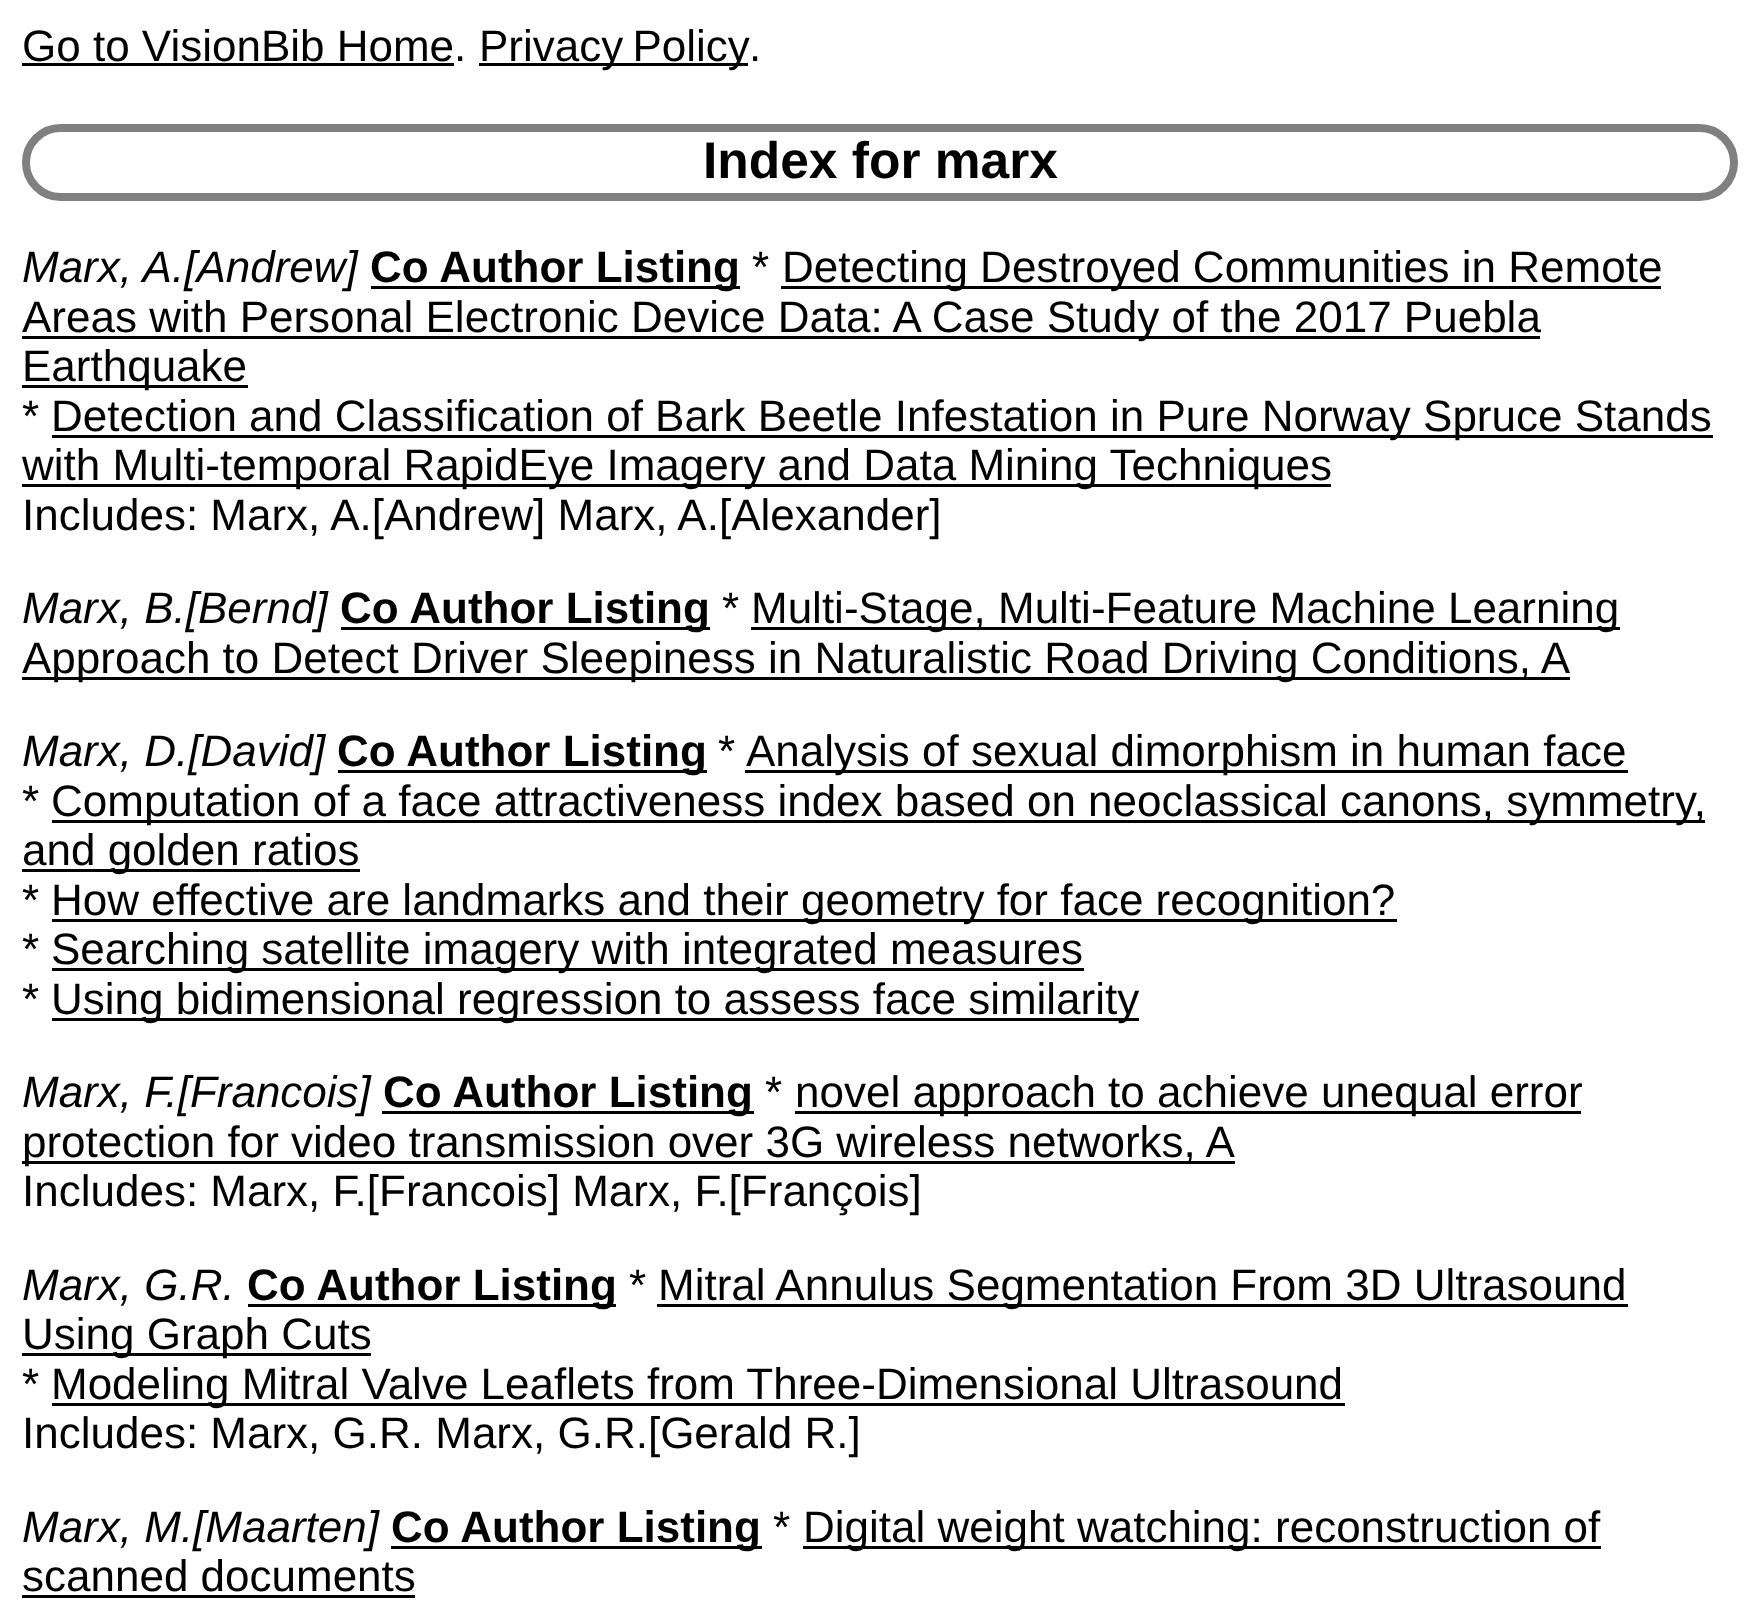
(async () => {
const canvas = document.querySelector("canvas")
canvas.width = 1760
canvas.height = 1617
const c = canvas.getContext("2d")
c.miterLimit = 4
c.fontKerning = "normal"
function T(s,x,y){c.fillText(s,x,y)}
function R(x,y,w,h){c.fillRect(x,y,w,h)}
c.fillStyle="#fff"
R(0,0,1760,1617)
c.font="44px Liberation Sans"
c.fillStyle="#000"
T("Go to VisionBib Home.",22,61)
R(22,63,432,3)
R(479,63,269,3)
c.wordSpacing="-3px"
T("Privacy Policy",479,61)
c.wordSpacing="0px"
T(".",749,61)
c.beginPath()
c.roundRect(26,128,1708,69,34.5)
c.strokeStyle="#808080"
c.lineWidth=8
c.stroke()
c.font="bold 51.5px Liberation Sans"
T("Index for marx",703,178)
c.font="italic 44px Liberation Sans"
T("Marx, A.[Andrew]",22,282)
R(371,286,369,3)
c.font="bold 44px Liberation Sans"
T("Co Author Listing",370,282)
c.font="44px Liberation Sans"
T("*",752,282)
R(781,286,880,3)
T("Detecting Destroyed Communities in Remote",782,282)
R(22,336,1518,3)
T("Areas with Personal Electronic Device Data: A Case Study of the 2017 Puebla",22,332)
R(22,385,226,3)
T("Earthquake",22,381)
T("*",22,431)
R(52,435,1661,3)
T("Detection and Classification of Bark Beetle Infestation in Pure Norway Spruce Stands",51,431)
R(22,484,1309,3)
T("with Multi-temporal RapidEye Imagery and Data Mining Techniques",22,480)
T("Includes: Marx, A.[Andrew] Marx, A.[Alexander]",22,530)
c.font="italic 44px Liberation Sans"
T("Marx, B.[Bernd]",22,623)
R(341,627,369,3)
c.font="bold 44px Liberation Sans"
T("Co Author Listing",340,623)
c.font="44px Liberation Sans"
T("*",722,623)
R(751,627,869,3)
T("Multi-Stage, Multi-Feature Machine Learning",751,623)
R(22,677,1548,3)
T("Approach to Detect Driver Sleepiness in Naturalistic Road Driving Conditions, A",22,673)
c.font="italic 44px Liberation Sans"
T("Marx, D.[David]",22,766)
R(338,770,369,3)
c.font="bold 44px Liberation Sans"
T("Co Author Listing",337,766)
c.font="44px Liberation Sans"
T("*",718,766)
R(745,770,883,3)
T("Analysis of sexual dimorphism in human face",746,766)
T("*",22,816)
R(52,820,1653,3)
T("Computation of a face attractiveness index based on neoclassical canons, symmetry,",51,816)
R(22,869,338,3)
T("and golden ratios",22,865)
T("*",22,915)
R(52,919,1345,3)
T("How effective are landmarks and their geometry for face recognition?",51,915)
T("*",22,964)
R(52,968,1032,3)
T("Searching satellite imagery with integrated measures",51,964)
T("*",22,1014)
R(52,1018,1087,3)
T("Using bidimensional regression to assess face similarity",51,1014)
c.font="italic 44px Liberation Sans"
T("Marx, F.[Francois]",22,1107)
R(382,1111,372,3)
c.font="bold 44px Liberation Sans"
T("Co Author Listing",383,1107)
c.font="44px Liberation Sans"
T("*",765,1107)
R(795,1111,786,3)
T("novel approach to achieve unequal error",795,1107)
R(22,1161,1213,3)
T("protection for video transmission over 3G wireless networks, A",22,1157)
T("Includes: Marx, F.[Francois] Marx, F.[François]",22,1206)
c.font="italic 44px Liberation Sans"
T("Marx, G.R.",22,1300)
R(248,1304,368,3)
c.font="bold 44px Liberation Sans"
T("Co Author Listing",247,1300)
c.font="44px Liberation Sans"
T("*",629,1300)
R(657,1304,971,3)
T("Mitral Annulus Segmentation From 3D Ultrasound",658,1300)
R(22,1353,349,3)
T("Using Graph Cuts",22,1349)
T("*",22,1399)
R(52,1403,1293,3)
T("Modeling Mitral Valve Leaflets from Three-Dimensional Ultrasound",51,1399)
T("Includes: Marx, G.R. Marx, G.R.[Gerald R.]",22,1448)
c.font="italic 44px Liberation Sans"
T("Marx, M.[Maarten]",22,1542)
R(391,1546,371,3)
c.font="bold 44px Liberation Sans"
T("Co Author Listing",391,1542)
c.font="44px Liberation Sans"
T("*",773,1542)
R(803,1546,798,3)
T("Digital weight watching: reconstruction of",803,1542)
T("scanned documents",22,1591)
R(22,1595,393,3)
})()
